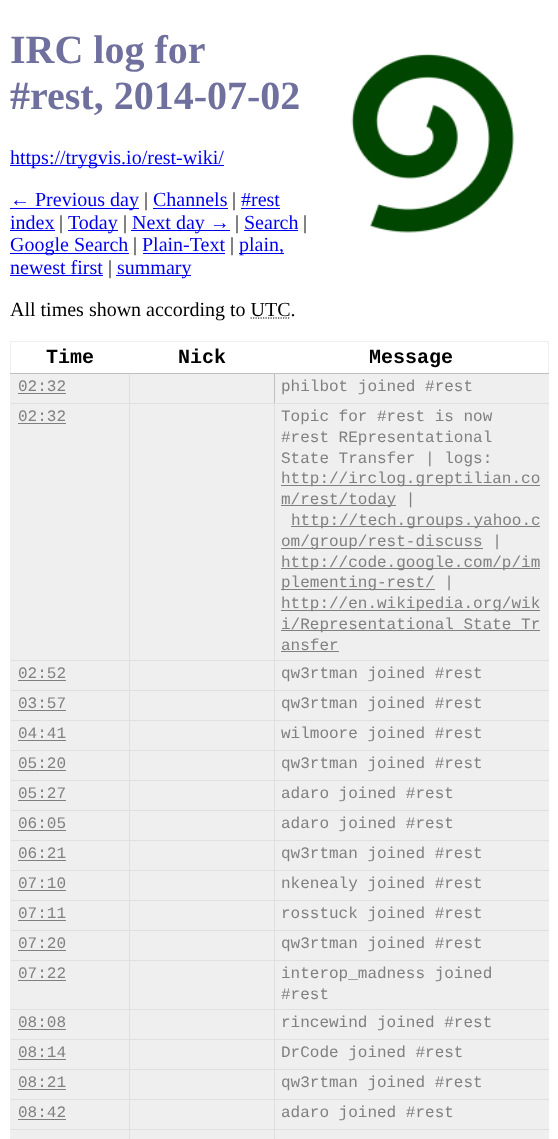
(async () => {
const canvas = document.querySelector("canvas")
canvas.width = 558
canvas.height = 1139
const c = canvas.getContext("2d")
c.miterLimit = 4
c.fontKerning = "normal"
function T(s,x,y){c.fillText(s,x,y)}
function R(x,y,w,h){c.fillRect(x,y,w,h)}
async function I(src,x,y,w,h){const img=new Image();img.src=src;await img.decode();c.drawImage(img,x,y,w,h)}
let path
c.fillStyle="#fff"
R(0,0,558,1139)
c.font="bold 40px Liberation Serif"
c.fillStyle="#70709f"
T("IRC log for",10,63)
T("#rest, 2014-07-02",10,109)
await I("1.png",351,53,164,180)
c.fillStyle="#00e"
R(10,165,214,1)
c.font="20px Liberation Serif"
T("https://trygvis.io/rest-wiki/",10,164)
R(10,208,129,1)
T("← Previous day",10,206)
c.fillStyle="#000"
T("|",144,206)
c.fillStyle="#00e"
T("Channels",153,206)
R(153,208,75,1)
c.fillStyle="#000"
T("|",232,206)
c.fillStyle="#00e"
T("#rest",241,206)
R(241,208,39,1)
T("index",10,229)
R(10,230,45,1)
c.fillStyle="#000"
T("|",59,229)
c.fillStyle="#00e"
R(68,230,50,1)
T("Today",68,229)
c.fillStyle="#000"
T("|",123,229)
c.fillStyle="#00e"
R(131,230,99,1)
T("Next day →",132,229)
c.fillStyle="#000"
T("|",235,229)
c.fillStyle="#00e"
T("Search",244,229)
R(244,230,54,1)
c.fillStyle="#000"
T("|",303,229)
c.fillStyle="#00e"
R(10,253,119,1)
T("Google Search",10,251)
c.fillStyle="#000"
T("|",133,251)
c.fillStyle="#00e"
T("Plain-Text",142,251)
R(143,253,82,1)
c.fillStyle="#000"
T("|",230,251)
c.fillStyle="#00e"
R(239,253,45,1)
T("plain,",239,251)
T("newest first",10,274)
R(10,275,93,1)
c.fillStyle="#000"
T("|",108,274)
c.fillStyle="#00e"
R(116,275,75,1)
T("summary",117,274)
c.fillStyle="#000"
T("All times shown according to UTC.",10,316)
path = new Path2D("M250.5 318h40")
c.strokeStyle="#000"
c.lineWidth=1.2
c.setLineDash([1.25,1.25])
c.stroke(path)
c.fillStyle="#efefef"
R(10,341,539,1)
R(548,341,1,32)
R(10,341,1,32)
c.font="bold 20px Liberation Mono"
c.fillStyle="#000"
T("Time",46,363)
T("Nick",178,363)
c.fillStyle="#efefef"
R(548,373,1,766)
R(11,1130,537,9)
R(11,404,537,256)
R(11,661,537,29)
R(11,691,537,29)
R(11,721,537,29)
R(11,751,537,29)
R(11,781,537,29)
R(11,811,537,29)
R(11,841,537,29)
R(11,871,537,29)
R(11,901,537,29)
R(11,931,537,29)
R(11,961,537,48)
R(11,1010,537,29)
R(11,1040,537,29)
R(11,1070,537,29)
R(11,1100,537,29)
c.fillStyle="#dfdfdf"
R(129,403,1,736)
c.fillStyle="#efefef"
R(11,374,537,29)
c.fillStyle="#dfdfdf"
R(274,1129,1,10)
R(274,1129,275,1)
R(274,1099,1,31)
R(274,1099,275,1)
R(274,1069,1,31)
R(274,1069,275,1)
R(274,1039,1,31)
R(274,1039,275,1)
R(274,1009,1,31)
R(274,1009,275,1)
R(274,960,1,50)
R(274,960,275,1)
R(274,930,1,31)
R(274,930,275,1)
R(274,900,1,31)
R(274,900,275,1)
R(274,870,1,31)
R(274,870,275,1)
R(274,840,1,31)
R(274,840,275,1)
R(274,810,1,31)
R(274,810,275,1)
R(274,780,1,31)
R(274,780,275,1)
R(274,750,1,31)
R(274,750,275,1)
R(274,720,1,31)
R(274,720,275,1)
R(274,690,1,31)
R(274,690,275,1)
R(274,660,1,31)
R(274,660,275,1)
R(274,403,1,258)
R(274,403,275,1)
c.fillStyle="#c0c0c0"
R(274,373,1,31)
c.fillStyle="#dfdfdf"
R(129,403,146,1)
R(129,373,1,31)
c.fillStyle="#efefef"
R(10,1129,1,10)
c.fillStyle="#dfdfdf"
R(10,1129,120,1)
c.fillStyle="#efefef"
R(10,1099,1,31)
c.fillStyle="#dfdfdf"
R(10,1099,120,1)
c.fillStyle="#efefef"
R(10,1069,1,31)
c.fillStyle="#dfdfdf"
R(10,1069,120,1)
c.fillStyle="#efefef"
R(10,1039,1,31)
c.fillStyle="#dfdfdf"
R(10,1039,120,1)
c.fillStyle="#efefef"
R(10,1009,1,31)
c.fillStyle="#dfdfdf"
R(10,1009,120,1)
c.fillStyle="#efefef"
R(10,960,1,50)
c.fillStyle="#dfdfdf"
R(10,960,120,1)
c.fillStyle="#efefef"
R(10,930,1,31)
c.fillStyle="#dfdfdf"
R(10,930,120,1)
c.fillStyle="#efefef"
R(10,900,1,31)
c.fillStyle="#dfdfdf"
R(10,900,120,1)
c.fillStyle="#efefef"
R(10,870,1,31)
c.fillStyle="#dfdfdf"
R(10,870,120,1)
c.fillStyle="#efefef"
R(10,840,1,31)
c.fillStyle="#dfdfdf"
R(10,840,120,1)
c.fillStyle="#efefef"
R(10,810,1,31)
c.fillStyle="#dfdfdf"
R(10,810,120,1)
c.fillStyle="#efefef"
R(10,780,1,31)
c.fillStyle="#dfdfdf"
R(10,780,120,1)
c.fillStyle="#efefef"
R(10,750,1,31)
c.fillStyle="#dfdfdf"
R(10,750,120,1)
c.fillStyle="#efefef"
R(10,720,1,31)
c.fillStyle="#dfdfdf"
R(10,720,120,1)
c.fillStyle="#efefef"
R(10,690,1,31)
c.fillStyle="#dfdfdf"
R(10,690,120,1)
c.fillStyle="#efefef"
R(10,660,1,31)
c.fillStyle="#dfdfdf"
R(10,660,120,1)
c.fillStyle="#efefef"
R(10,403,1,258)
c.fillStyle="#dfdfdf"
R(10,403,120,1)
c.fillStyle="#efefef"
R(10,373,1,31)
c.fillStyle="#c0c0c0"
R(10,373,539,1)
c.fillStyle="#000"
T("Message",369,363)
c.fillStyle="#dfdfdf"
R(130,1129,144,1)
c.font="16px Liberation Mono"
c.fillStyle="#808080"
T("02:32",18,391)
R(18,393,48,1)
T("philbot joined #rest",281,391)
T("02:32",18,421)
R(18,423,48,1)
T("Topic for #rest is now",281,421)
T("#rest REpresentational",281,442)
T("State Transfer | logs:",281,463)
R(281,485,259,1)
T("http://irclog.greptilian.co",281,483)
R(281,505,115,1)
T("m/rest/today |",281,504)
R(291,526,249,1)
T("http://tech.groups.yahoo.c",291,525)
R(281,548,202,1)
T("om/group/rest-discuss |",281,546)
R(281,568,259,1)
T("http://code.google.com/p/im",281,567)
R(281,589,154,1)
T("plementing-rest/ |",281,587)
R(281,610,259,1)
T("http://en.wikipedia.org/wik",281,608)
R(281,630,259,1)
T("i/Representational_State_Tr",281,629)
T("ansfer",281,650)
R(281,651,58,1)
c.fillStyle="#dfdfdf"
R(130,660,144,1)
c.fillStyle="#808080"
T("02:52",18,678)
R(18,680,48,1)
T("qw3rtman joined #rest",281,678)
c.fillStyle="#dfdfdf"
R(130,690,144,1)
c.fillStyle="#808080"
T("03:57",18,708)
R(18,710,48,1)
T("qw3rtman joined #rest",281,708)
c.fillStyle="#dfdfdf"
R(130,720,144,1)
c.fillStyle="#808080"
T("04:41",18,738)
R(18,740,48,1)
T("wilmoore joined #rest",281,738)
c.fillStyle="#dfdfdf"
R(130,750,144,1)
c.fillStyle="#808080"
T("05:20",18,768)
R(18,770,48,1)
T("qw3rtman joined #rest",281,768)
c.fillStyle="#dfdfdf"
R(130,780,144,1)
c.fillStyle="#808080"
T("05:27",18,798)
R(18,800,48,1)
T("adaro joined #rest",281,798)
c.fillStyle="#dfdfdf"
R(130,810,144,1)
c.fillStyle="#808080"
T("06:05",18,828)
R(18,830,48,1)
T("adaro joined #rest",281,828)
c.fillStyle="#dfdfdf"
R(130,840,144,1)
c.fillStyle="#808080"
T("06:21",18,858)
R(18,860,48,1)
T("qw3rtman joined #rest",281,858)
c.fillStyle="#dfdfdf"
R(130,870,144,1)
c.fillStyle="#808080"
T("07:10",18,888)
R(18,890,48,1)
T("nkenealy joined #rest",281,888)
c.fillStyle="#dfdfdf"
R(130,900,144,1)
c.fillStyle="#808080"
T("07:11",18,918)
R(18,920,48,1)
T("rosstuck joined #rest",281,918)
c.fillStyle="#dfdfdf"
R(130,930,144,1)
c.fillStyle="#808080"
T("07:20",18,948)
R(18,950,48,1)
T("qw3rtman joined #rest",281,948)
c.fillStyle="#dfdfdf"
R(130,960,144,1)
c.fillStyle="#808080"
T("07:22",18,978)
R(18,980,48,1)
T("interop_madness joined",281,978)
T("#rest",281,999)
c.fillStyle="#dfdfdf"
R(130,1009,144,1)
c.fillStyle="#808080"
T("08:08",18,1027)
R(18,1029,48,1)
T("rincewind joined #rest",281,1027)
c.fillStyle="#dfdfdf"
R(130,1039,144,1)
c.fillStyle="#808080"
T("08:14",18,1057)
R(18,1059,48,1)
T("DrCode joined #rest",281,1057)
c.fillStyle="#dfdfdf"
R(130,1069,144,1)
c.fillStyle="#808080"
T("08:21",18,1087)
R(18,1089,48,1)
T("qw3rtman joined #rest",281,1087)
c.fillStyle="#dfdfdf"
R(130,1099,144,1)
c.fillStyle="#808080"
T("08:42",18,1117)
R(18,1119,48,1)
T("adaro joined #rest",281,1117)
})()
